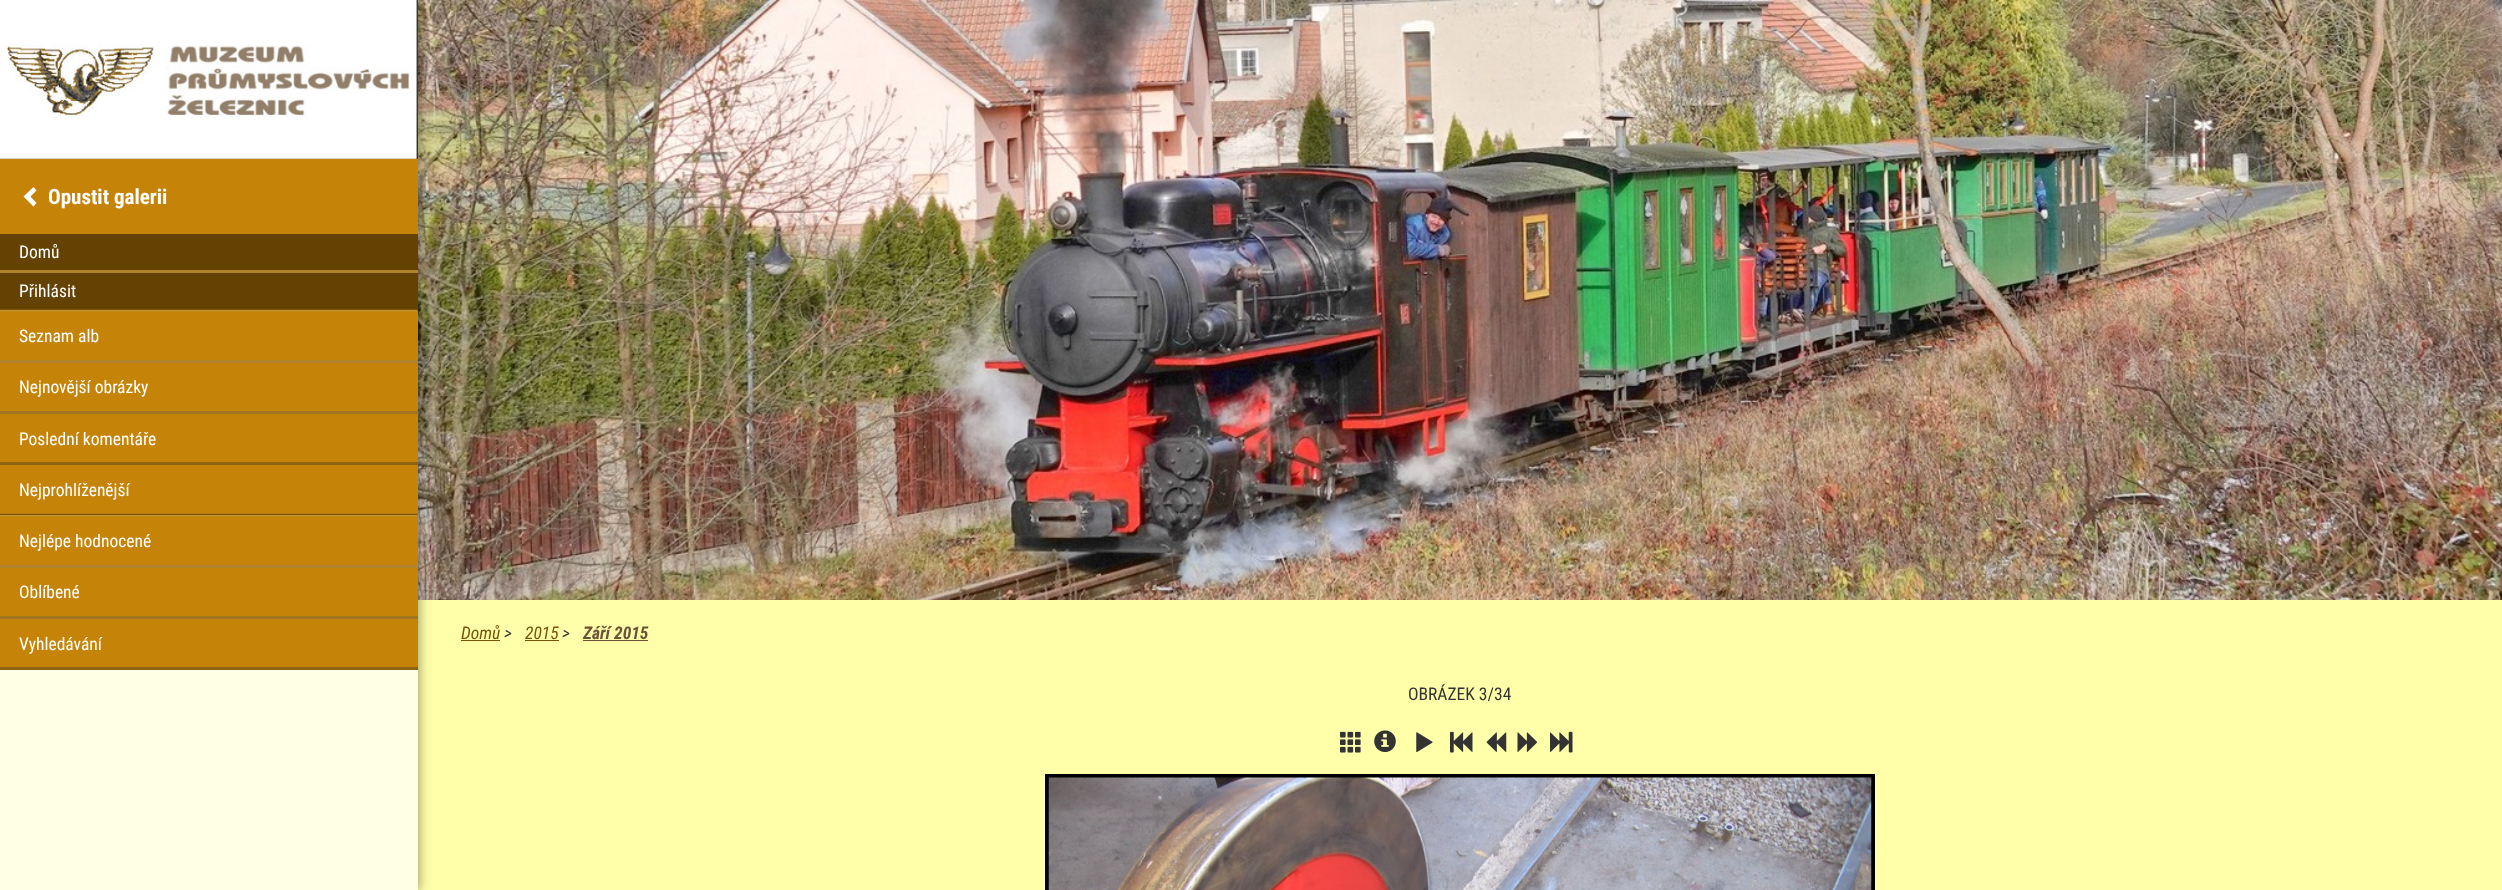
(async () => {
const canvas = document.querySelector("canvas")
canvas.width = 2502
canvas.height = 890
const c = canvas.getContext("2d")
c.miterLimit = 4
c.fontKerning = "normal"
function T(s,x,y){c.fillText(s,x,y)}
function R(x,y,w,h){c.fillRect(x,y,w,h)}
async function I(src,x,y,w,h){const img=new Image();img.src=src;await img.decode();c.drawImage(img,x,y,w,h)}
let path
c.fillStyle="#ffa"
R(0,0,2502,890)
await I("4.png",418,0,2084,600)
c.save()
path = new Path2D("M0 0h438v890h-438zm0 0h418v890h-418z")
c.clip(path,"evenodd")
c.fillStyle="#00000066"
c.filter="blur(6px)"
c.beginPath()
c.rect(1,1,418,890)
c.fill()
c.filter="none"
c.restore()
c.fillStyle="#ffffffb3"
R(0,670,418,220)
c.fillStyle="#c58307"
R(0,159,418,508)
c.fillStyle="#7a5207"
R(0,0,418,159)
await I("1.png",0,0,418,159)
c.fillStyle="#fff"
path = new Path2D("M36.5 190.5l-6 6l6 6.5l-3 3.5l-10-10l10-9.5z")
c.fill(path)
c.font="bold 21px Roboto Condensed"
T("Opustit galerii",48,204)
c.fillStyle="#634204"
R(0,234,418,77)
c.fillStyle="#b1832b"
R(0,270,418,3)
c.font="17.5px Roboto Condensed"
c.fillStyle="#fff"
T("Domů",19,258)
await I("2.png",0,308,418,4)
T("Přihlásit",19,297)
c.fillStyle="#b1832b"
R(0,360,418,3)
c.fillStyle="#fff"
T("Seznam alb",19,342)
c.fillStyle="#a27520"
R(0,411,418,3)
c.fillStyle="#fff"
T("Nejnovější obrázky",19,393)
c.fillStyle="#8e6311"
R(0,462,418,3)
c.fillStyle="#fff"
T("Poslední komentáře",19,445)
await I("3.png",0,513,418,4)
T("Nejprohlíženější",19,496)
c.fillStyle="#b1832b"
R(0,565,418,3)
c.fillStyle="#fff"
T("Nejlépe hodnocené",19,547)
c.fillStyle="#a27520"
R(0,616,418,3)
c.fillStyle="#fff"
T("Oblíbené",19,598)
c.fillStyle="#8e6311"
R(0,667,418,3)
c.fillStyle="#fff"
T("Vyhledávání",19,650)
c.font="italic 17.5px Roboto Condensed"
c.fillStyle="#7a5207"
T("Domů",461,639)
R(461,640,39,1)
c.fillStyle="#333"
T(">",504,639)
c.fillStyle="#7a5207"
T("2015",525,639)
R(525,640,34,1)
c.fillStyle="#333"
T(">",562,639)
c.font="italic bold 17.5px Roboto Condensed"
c.fillStyle="#6c5239"
T("Září 2015",583,639)
R(583,640,65,1)
c.font="17.5px Roboto Condensed"
c.fillStyle="#333"
T("OBRÁZEK 3/34",1408,700)
await I("5.png",1340,731,21,22)
await I("6.png",1374,730,22,23)
await I("7.png",1416,732,17,21)
await I("8.png",1450,731,23,22)
await I("9.png",1486,732,21,20)
await I("10.png",1517,732,20,20)
await I("11.png",1549,731,24,22)
c.strokeStyle="#000"
c.lineWidth=4
c.strokeRect(1047,776,826,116)
await I("12.png",1048,777,824,113)
})()
